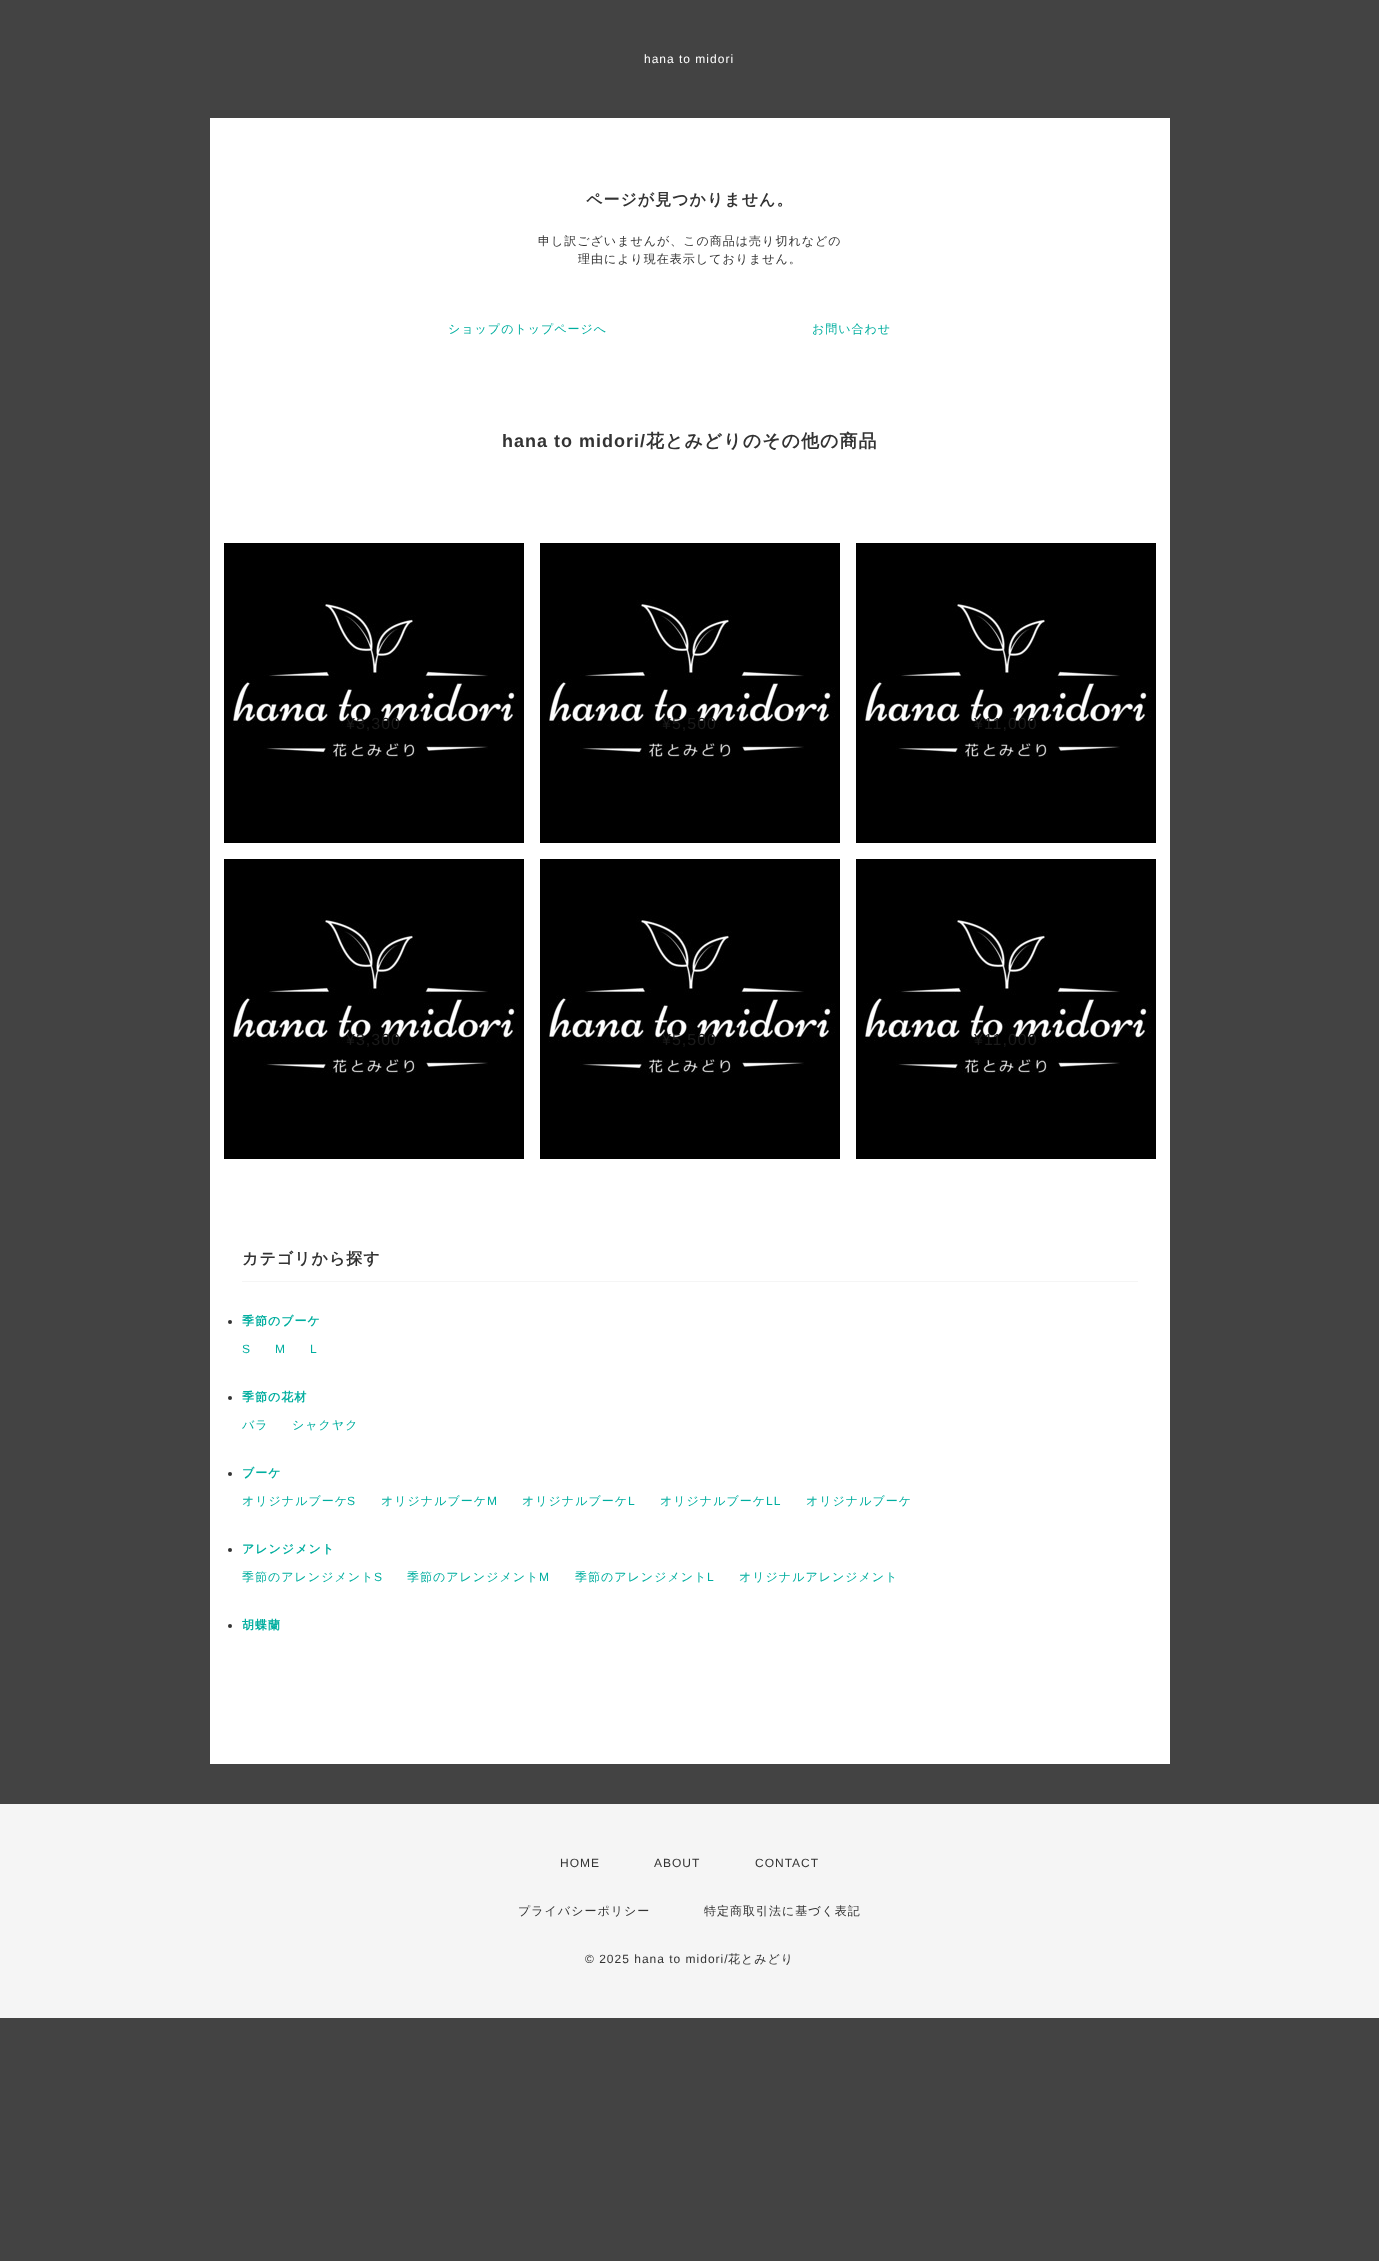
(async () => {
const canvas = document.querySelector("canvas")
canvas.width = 1379
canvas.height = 2261
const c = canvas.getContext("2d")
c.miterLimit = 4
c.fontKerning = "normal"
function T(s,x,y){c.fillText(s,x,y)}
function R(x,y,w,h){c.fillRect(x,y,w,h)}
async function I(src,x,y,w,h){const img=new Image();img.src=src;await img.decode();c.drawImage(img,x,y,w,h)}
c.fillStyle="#434343"
R(0,0,1379,2261)
c.letterSpacing="1px"
c.font="12px Liberation Sans"
c.fillStyle="#fff"
T("hana to midori",644,63)
R(210,118,960,1646)
c.font="bold 16px WenQuanYi Zen Hei"
c.fillStyle="#333"
T("ページが見つかりません。",586,205)
c.font="500 12px WenQuanYi Zen Hei"
T("申し訳ございませんが、この商品は売り切れなどの",538,245)
T("理由により現在表示しておりません。",578,263)
c.fillStyle="#00ae9f"
T("ショップのトップページへ",448,333)
T("お問い合わせ",812,333)
c.font="bold 18px Liberation Sans"
c.fillStyle="#333"
T("hana to midori/",502,447)
c.font="bold 18px WenQuanYi Zen Hei"
T("花とみどりのその他の商品",646,447)
await I("1.png",224,543,300,300)
c.font="16px Liberation Sans"
c.fillStyle="#1a1a1a"
T("¥3,300",346,729)
await I("1.png",540,543,300,300)
T("¥5,500",662,729)
await I("1.png",856,543,300,300)
T("¥11,000",974,729)
await I("1.png",224,859,300,300)
T("¥3,300",346,1045)
await I("1.png",540,859,300,300)
T("¥5,500",662,1045)
await I("1.png",856,859,300,300)
T("¥11,000",974,1045)
c.fillStyle="#f5f5f5"
R(242,1281,896,1)
c.font="bold 16px WenQuanYi Zen Hei"
c.fillStyle="#333"
T("カテゴリから探す",242,1264)
c.beginPath()
c.arc(230,1322,2,0,7)
c.fill()
c.font="bold 12px WenQuanYi Zen Hei"
c.fillStyle="#00ae9f"
T("季節のブーケ",242,1325)
c.font="12px Liberation Sans"
T("S",242,1353)
T("М",275,1353)
T("L",310,1353)
c.fillStyle="#333"
c.beginPath()
c.arc(230,1398,2,0,7)
c.fill()
c.font="bold 12px WenQuanYi Zen Hei"
c.fillStyle="#00ae9f"
T("季節の花材",242,1401)
c.font="500 12px WenQuanYi Zen Hei"
T("バラ",242,1429)
T("シャクヤク",292,1429)
c.fillStyle="#333"
c.beginPath()
c.arc(230,1474,2,0,7)
c.fill()
c.font="bold 12px WenQuanYi Zen Hei"
c.fillStyle="#00ae9f"
T("ブーケ",242,1477)
c.font="500 12px WenQuanYi Zen Hei"
T("オリジナルブーケ",242,1505)
c.font="12px Liberation Sans"
T("S",347,1505)
c.font="500 12px WenQuanYi Zen Hei"
T("オリジナルブーケ",381,1505)
c.font="12px Liberation Sans"
T("М",487,1505)
c.font="500 12px WenQuanYi Zen Hei"
T("オリジナルブーケ",522,1505)
c.font="12px Liberation Sans"
T("L",628,1505)
c.font="500 12px WenQuanYi Zen Hei"
T("オリジナルブーケ",660,1505)
c.font="12px Liberation Sans"
T("LL",766,1505)
c.font="500 12px WenQuanYi Zen Hei"
T("オリジナルブーケ",806,1505)
c.fillStyle="#333"
c.beginPath()
c.arc(230,1550,2,0,7)
c.fill()
c.font="bold 12px WenQuanYi Zen Hei"
c.fillStyle="#00ae9f"
T("アレンジメント",242,1553)
c.font="500 12px WenQuanYi Zen Hei"
T("季節のアレンジメント",242,1581)
c.font="12px Liberation Sans"
T("S",374,1581)
c.font="500 12px WenQuanYi Zen Hei"
T("季節のアレンジメント",407,1581)
c.font="12px Liberation Sans"
T("M",539,1581)
c.font="500 12px WenQuanYi Zen Hei"
T("季節のアレンジメント",575,1581)
c.font="12px Liberation Sans"
T("L",707,1581)
c.font="500 12px WenQuanYi Zen Hei"
T("オリジナルアレンジメント",739,1581)
c.fillStyle="#333"
c.beginPath()
c.arc(230,1626,2,0,7)
c.fill()
c.font="bold 12px WenQuanYi Zen Hei"
c.fillStyle="#00ae9f"
T("胡蝶蘭",242,1629)
c.fillStyle="#f5f5f5"
R(0,1804,1379,214)
c.font="12px Liberation Sans"
c.fillStyle="#333"
T("HOME",560,1867)
T("ABOUT",654,1867)
T("CONTACT",755,1867)
c.font="500 12px WenQuanYi Zen Hei"
T("プライバシーポリシー",518,1915)
T("特定商取引法に基づく表記",704,1915)
c.font="12px Liberation Sans"
T("© 2025 hana to midori/",585,1963)
c.font="500 12px WenQuanYi Zen Hei"
T("花とみどり",728,1963)
})()
